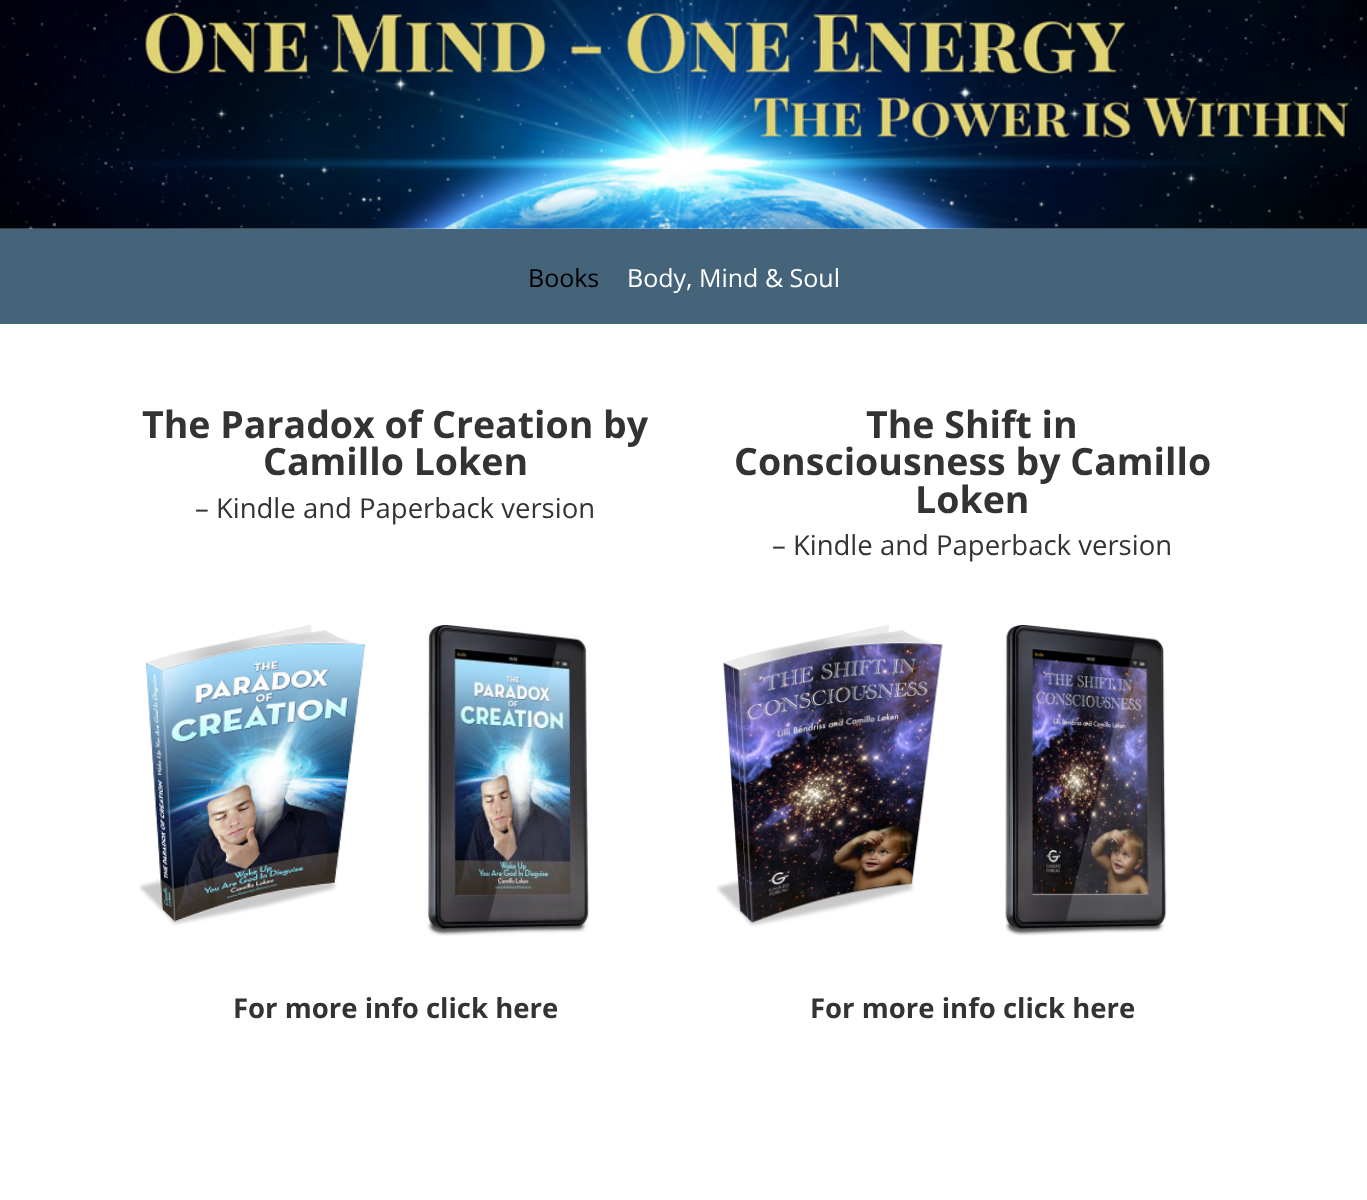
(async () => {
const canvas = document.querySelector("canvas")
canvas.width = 1367
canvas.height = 1200
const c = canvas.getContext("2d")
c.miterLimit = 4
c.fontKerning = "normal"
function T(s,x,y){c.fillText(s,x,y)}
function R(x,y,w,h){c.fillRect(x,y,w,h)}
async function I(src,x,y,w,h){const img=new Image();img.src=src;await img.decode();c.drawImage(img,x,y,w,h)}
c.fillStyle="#fff"
R(0,0,1367,1200)
await I("1.png",0,0,1367,229)
c.fillStyle="#45647a"
R(0,229,1367,95)
c.font="25px Open Sans"
c.fillStyle="#000"
T("Books",528,287)
c.fillStyle="#fff"
T("Body, Mind & Soul",627,287)
c.font="bold 37.5px Open Sans"
c.fillStyle="#333"
T("The Paradox of Creation by",142,438)
T("Camillo Loken",263,475)
c.font="27.5px Open Sans"
T("– Kindle and Paperback version",195,518)
c.font="bold 37.5px Open Sans"
T("The Shift in",866,438)
T("Consciousness by Camillo",734,475)
T("Loken",915,513)
c.font="27.5px Open Sans"
T("– Kindle and Paperback version",772,555)
await I("2.png",139,625,226,301)
await I("3.png",425,625,164,311)
await I("4.png",716,625,227,302)
await I("5.png",1005,625,162,311)
c.font="bold 27.5px Open Sans"
T("For more info click here",233,1018)
T("For more info click here",810,1018)
})()
